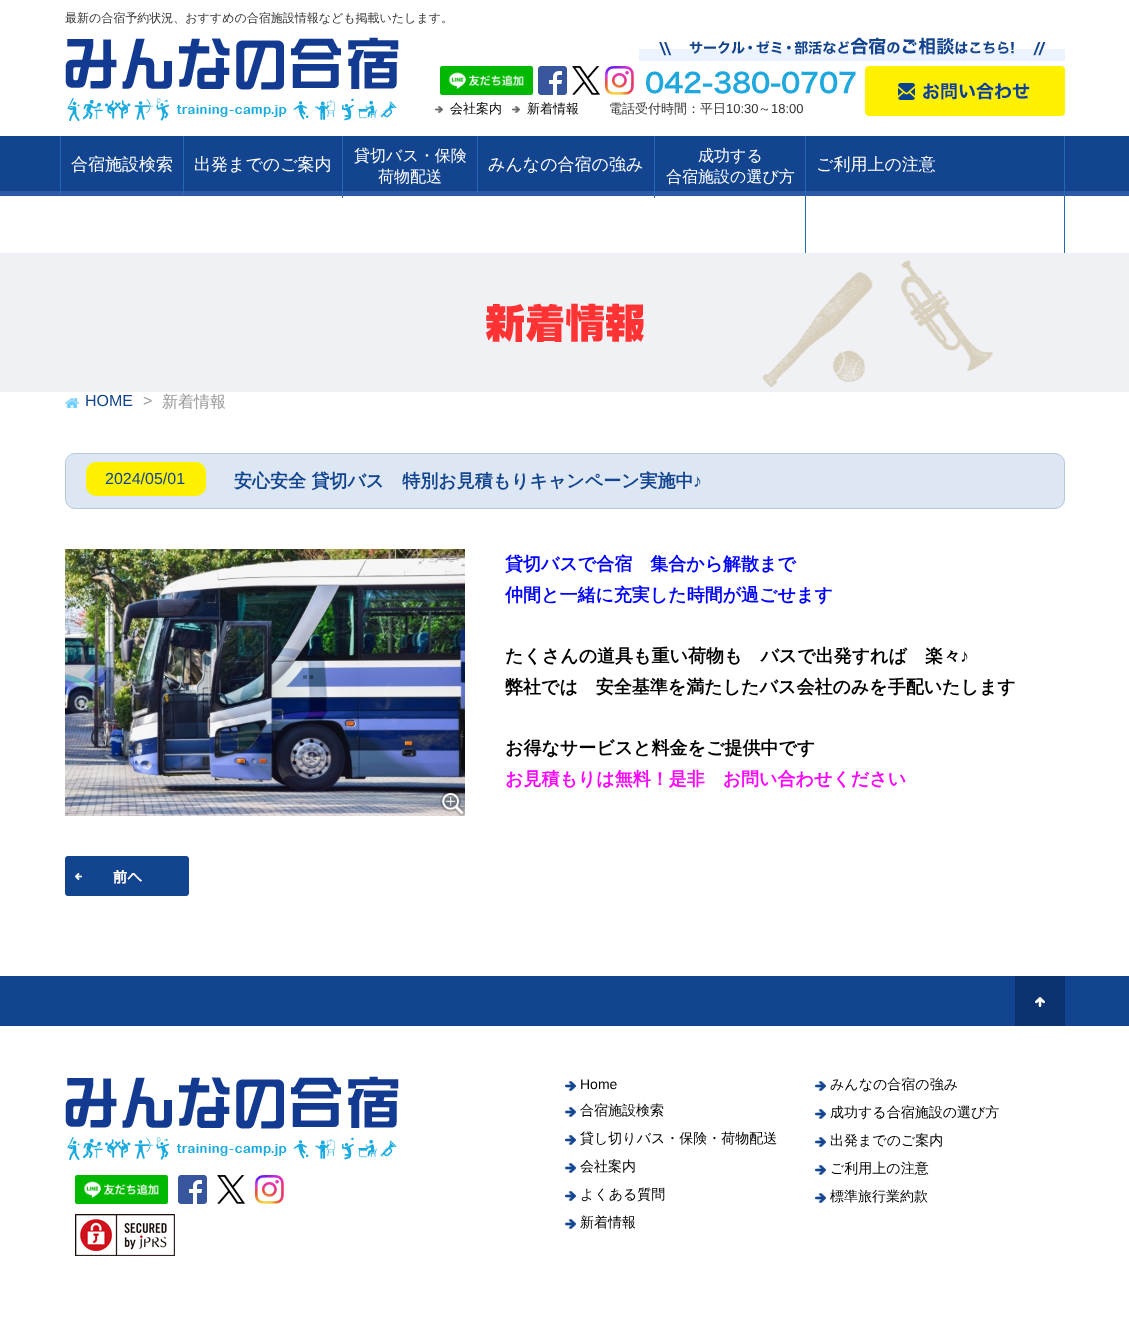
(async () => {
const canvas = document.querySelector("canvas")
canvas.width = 1129
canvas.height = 1330
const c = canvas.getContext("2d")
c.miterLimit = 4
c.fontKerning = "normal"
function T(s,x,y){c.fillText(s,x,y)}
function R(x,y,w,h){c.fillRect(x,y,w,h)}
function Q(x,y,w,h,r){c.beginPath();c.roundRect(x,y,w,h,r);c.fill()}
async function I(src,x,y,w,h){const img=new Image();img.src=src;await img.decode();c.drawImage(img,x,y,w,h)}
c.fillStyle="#fff"
R(0,0,1129,1330)
c.font="500 12px WenQuanYi Zen Hei"
c.fillStyle="#333"
T("最新の合宿予約状況、おすすめの合宿施設情報なども掲載いたします。",65,22)
await I("1.png",65,37,334,84)
await I("2.png",639,37,426,24)
await I("3.png",440,66,93,29)
await I("4.png",538,66,29,29)
await I("5.png",572,66,28,29)
await I("6.png",605,66,29,29)
await I("7.png",646,71,210,23)
await I("8.png",865,66,200,50)
await I("9.png",435,106,8,7)
c.font="500 13px WenQuanYi Zen Hei"
c.fillStyle="#000"
T("会社案内",450,113)
await I("9.png",512,106,8,7)
T("新着情報",527,113)
c.fillStyle="#333"
T("電話受付時間：平日",609,113)
c.font="13px Liberation Sans"
T("10:30",726,113)
c.font="500 13px WenQuanYi Zen Hei"
T("～",758,113)
c.font="13px Liberation Sans"
T("18:00",771,113)
await I("10.png",0,136,1129,60)
c.fillStyle="#2469b1"
R(1064,136,1,117)
R(60,136,1,59)
c.font="500 17px WenQuanYi Zen Hei"
c.fillStyle="#fff"
T("合宿施設検索",71,170)
c.fillStyle="#2469b1"
R(183,136,1,59)
c.fillStyle="#fff"
T("出発までのご案内",194,170)
c.fillStyle="#2469b1"
R(342,136,1,62)
c.font="500 16px WenQuanYi Zen Hei"
c.fillStyle="#fff"
T("貸切バス・保険",354,161)
T("荷物配送",378,182)
c.fillStyle="#2469b1"
R(477,136,1,59)
c.font="500 17px WenQuanYi Zen Hei"
c.fillStyle="#fff"
T("みんなの合宿の強み",488,170)
c.fillStyle="#2469b1"
R(654,136,1,62)
c.font="500 16px WenQuanYi Zen Hei"
c.fillStyle="#fff"
T("成功する",698,161)
T("合宿施設の選び方",666,182)
c.fillStyle="#2469b1"
R(805,136,1,117)
c.font="500 17px WenQuanYi Zen Hei"
c.fillStyle="#fff"
T("ご利用上の注意",816,170)
c.fillStyle="#f0f1f4"
R(0,253,1129,139)
await I("11.png",762,260,231,128)
await I("12.png",486,303,158,39)
await I("13.png",65,398,14,10)
c.font="16px Liberation Sans"
c.fillStyle="#13448f"
T("HOME",85,406)
c.fillStyle="#999"
T(">",143,406)
c.font="500 16px WenQuanYi Zen Hei"
T("新着情報",162,407)
c.fillStyle="#dde7f3"
c.beginPath()
c.roundRect(65.5,453.5,999,55,9.5)
c.fill()
c.strokeStyle="#b5c7de"
c.stroke()
c.fillStyle="#fff100"
Q(86,462,120,34,10)
c.font="16px Liberation Sans"
c.fillStyle="#13448f"
T("2024/05/01",105,484)
c.font="bold 18px WenQuanYi Zen Hei"
T("安心安全 貸切バス　特別お見積もりキャンペーン実施中",234,487)
c.font="bold 18px Liberation Sans"
T("♪",693,487)
await I("14.png",65,549,400,267)
await I("15.png",440,791,25,25)
c.font="bold 18px WenQuanYi Zen Hei"
c.fillStyle="#00f"
T("貸切バスで合宿　集合から解散まで",505,570)
T("仲間と一緒に充実した時間が過ごせます",505,601)
c.fillStyle="#000"
T("たくさんの道具も重い荷物も　バスで出発すれば　楽々",505,662)
c.font="bold 18px Liberation Sans"
T("♪",960,662)
c.font="bold 18px WenQuanYi Zen Hei"
T("弊社では　安全基準を満たしたバス会社のみを手配いたします",505,693)
T("お得なサービスと料金をご提供中です",505,754)
c.fillStyle="#f0f"
T("お見積もりは無料！是非　お問い合わせください",505,785)
await I("16.png",65,856,124,40)
c.fillStyle="#13448f"
R(0,976,1129,50)
await I("17.png",1015,976,50,50)
await I("1.png",65,1076,334,84)
await I("3.png",75,1175,93,29)
await I("4.png",178,1175,29,29)
await I("5.png",217,1175,28,29)
await I("6.png",255,1175,29,29)
await I("18.png",75,1214,100,42)
await I("19.png",565,1081,11,10)
c.font="14px Liberation Sans"
c.fillStyle="#000"
T("Home",580,1089)
await I("19.png",565,1107,11,10)
c.font="500 14px WenQuanYi Zen Hei"
T("合宿施設検索",580,1115)
await I("19.png",565,1135,11,10)
T("貸し切りバス・保険・荷物配送",580,1143)
await I("19.png",565,1163,11,10)
T("会社案内",580,1171)
await I("19.png",565,1191,11,10)
T("よくある質問",580,1199)
await I("19.png",565,1219,11,10)
T("新着情報",580,1227)
await I("19.png",815,1081,11,10)
T("みんなの合宿の強み",830,1089)
await I("19.png",815,1109,11,10)
T("成功する合宿施設の選び方",830,1117)
await I("19.png",815,1137,11,10)
T("出発までのご案内",830,1145)
await I("19.png",815,1165,11,10)
T("ご利用上の注意",830,1173)
await I("19.png",815,1193,11,10)
T("標準旅行業約款",830,1201)
})()
